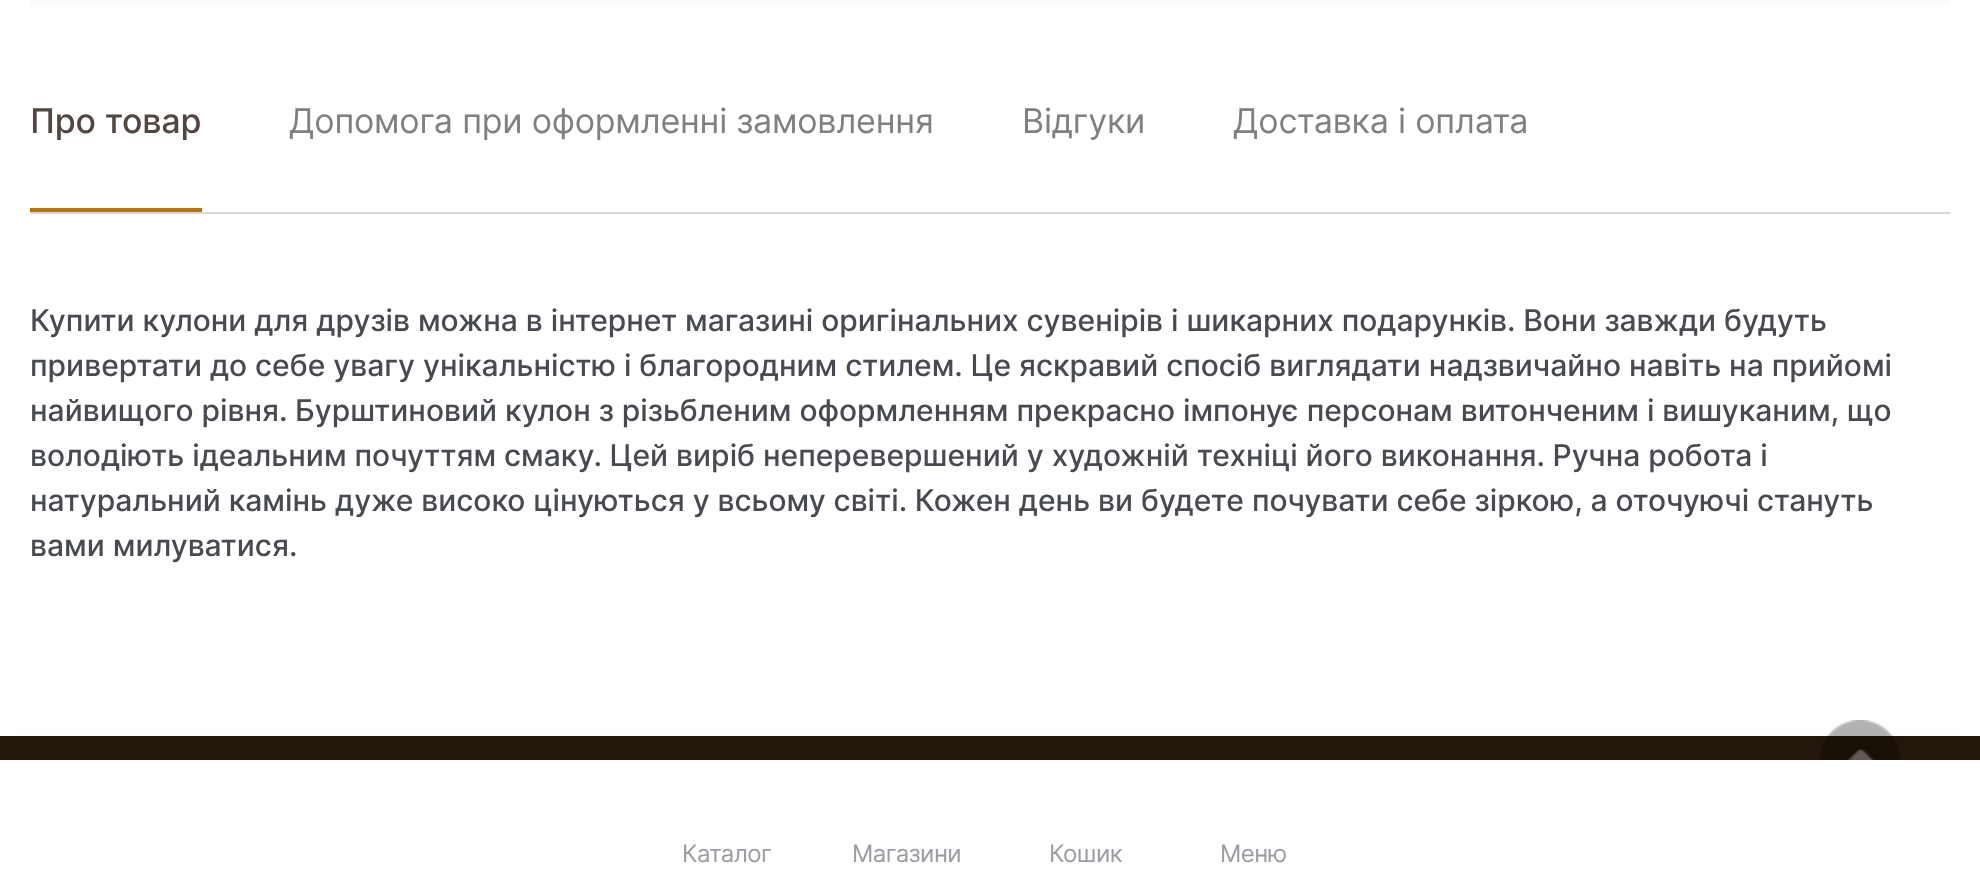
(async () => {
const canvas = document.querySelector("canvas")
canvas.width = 1980
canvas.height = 879
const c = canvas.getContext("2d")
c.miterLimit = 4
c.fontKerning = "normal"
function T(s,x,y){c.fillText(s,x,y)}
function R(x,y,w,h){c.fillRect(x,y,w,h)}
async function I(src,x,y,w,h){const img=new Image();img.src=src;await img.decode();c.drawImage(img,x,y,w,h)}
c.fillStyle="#fff"
R(0,0,1980,879)
c.fillStyle="#fbfbfb"
R(30,0,1920,6)
c.fillStyle="#d9d9d9"
R(30,212,1920,2)
c.letterSpacing="-0.2px"
c.font="500 34px Inter"
c.fillStyle="#534542"
T("Про товар",30,133)
c.fillStyle="#bd7100"
R(30,208,172,4)
c.font="34px Inter"
c.fillStyle="#7e8083"
T("Допомога при оформленні замовлення",289,133)
T("Відгуки",1022,133)
T("Доставка і оплата",1233,133)
c.letterSpacing="0px"
c.font="500 30px Inter"
c.fillStyle="#474a50"
T("Купити кулони для друзів можна в інтернет магазині оригінальних сувенірів і шикарних подарунків. Вони завжди будуть",30,331)
T("привертати до себе увагу унікальністю і благородним стилем. Це яскравий спосіб виглядати надзвичайно навіть на прийомі",30,376)
T("найвищого рівня. Бурштиновий кулон з різьбленим оформленням прекрасно імпонує персонам витонченим і вишуканим, що",30,421)
T("володіють ідеальним почуттям смаку. Цей виріб неперевершений у художній техніці його виконання. Ручна робота і",30,466)
T("натуральний камінь дуже високо цінуються у всьому світі. Кожен день ви будете почувати себе зіркою, а оточуючі стануть",30,511)
T("вами милуватися.",30,556)
c.fillStyle="#24180c"
R(0,736,1980,24)
await I("1.png",1820,720,80,40)
c.fillStyle="#0000000f"
c.filter="blur(16px)"
c.beginPath()
c.rect(0,758,1980,120)
c.fill()
c.filter="none"
c.fillStyle="#fff"
R(0,760,1980,119)
c.letterSpacing="-0.5px"
c.font="24px Inter"
c.fillStyle="#9a9ca2"
T("Каталог",682,862)
T("Магазини",852,862)
T("Кошик",1049,862)
T("Меню",1220,862)
})()
